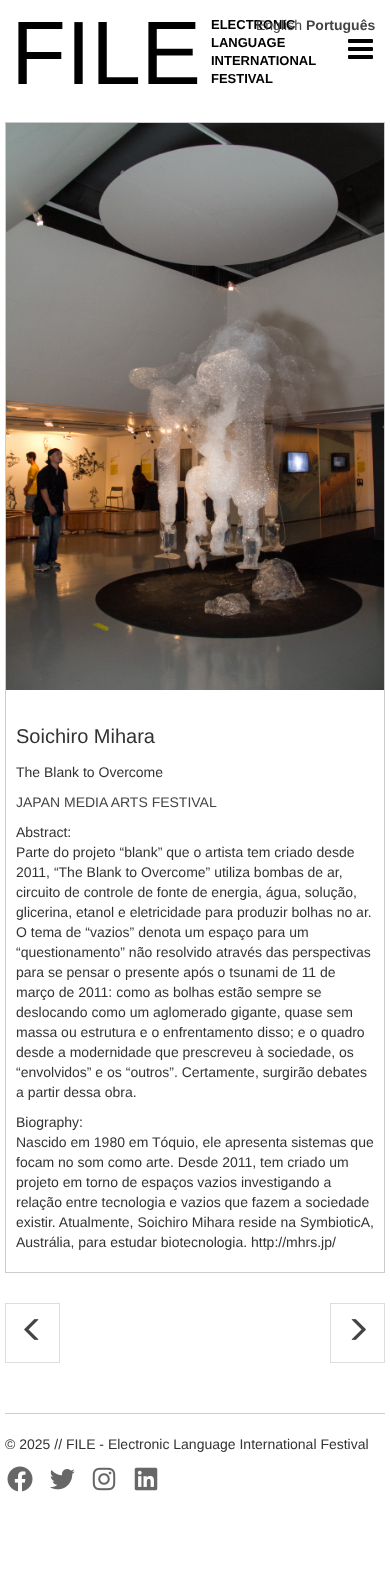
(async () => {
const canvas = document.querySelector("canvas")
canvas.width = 390
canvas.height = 1580
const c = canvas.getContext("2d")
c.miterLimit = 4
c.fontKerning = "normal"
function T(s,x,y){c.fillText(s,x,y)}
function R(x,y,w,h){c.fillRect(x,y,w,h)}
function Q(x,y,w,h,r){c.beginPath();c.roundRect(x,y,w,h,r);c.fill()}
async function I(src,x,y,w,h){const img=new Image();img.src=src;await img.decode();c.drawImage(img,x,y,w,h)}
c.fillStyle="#fff"
R(0,0,390,1580)
c.font="90px Liberation Sans"
c.fillStyle="#000"
T("FILE",11,84)
c.font="bold 13px Liberation Sans"
T("ELECTRONIC",211,29)
T("LANGUAGE",211,47)
T("INTERNATIONAL",211,65)
T("FESTIVAL",211,83)
c.fillStyle="#010101"
Q(348,39,25,4,1)
Q(348,47,25,4,1)
Q(348,55,25,4,1)
c.font="14px Liberation Sans"
c.fillStyle="#444"
T("English",256,30)
c.font="bold 14px Liberation Sans"
T("Português",306,30)
c.fillStyle="#ccc"
R(5,122,380,1)
R(384,122,1,1151)
R(5,122,1,568)
await I("1.png",6,123,378,567)
R(5,1272,380,1)
R(5,690,1,583)
c.font="20px Liberation Sans"
c.fillStyle="#333"
T("Soichiro Mihara",16,743)
c.font="14px Liberation Sans"
T("The Blank to Overcome",16,777)
c.fillStyle="#444"
T("JAPAN MEDIA ARTS FESTIVAL",16,807)
c.fillStyle="#333"
T("Abstract:",16,837)
T("Parte do projeto “blank” que o artista tem criado desde",16,857)
T("2011, “The Blank to Overcome” utiliza bombas de ar,",16,877)
T("circuito de controle de fonte de energia, água, solução,",16,897)
T("glicerina, etanol e eletricidade para produzir bolhas no ar.",16,917)
T("O tema de “vazios” denota um espaço para um",16,937)
T("“questionamento” não resolvido através das perspectivas",16,957)
T("para se pensar o presente após o tsunami de 11 de",16,977)
T("março de 2011: como as bolhas estão sempre se",16,997)
T("deslocando como um aglomerado gigante, quase sem",16,1017)
T("massa ou estrutura e o enfrentamento disso; e o quadro",16,1037)
T("desde a modernidade que prescreveu à sociedade, os",16,1057)
T("“envolvidos” e os “outros”. Certamente, surgirão debates",16,1077)
T("a partir dessa obra.",16,1097)
T("Biography:",16,1127)
T("Nascido em 1980 em Tóquio, ele apresenta sistemas que",16,1147)
T("focam no som como arte. Desde 2011, tem criado um",16,1167)
T("projeto em torno de espaços vazios investigando a",16,1187)
T("relação entre tecnologia e vazios que fazem a sociedade",16,1207)
T("existir. Atualmente, Soichiro Mihara reside na SymbioticA,",16,1227)
T("Austrália, para estudar biotecnologia. http://mhrs.jp/",16,1247)
c.strokeStyle="#ddd"
c.strokeRect(5.5,1303.5,54,59)
await I("2.png",24,1319,15,21)
c.strokeRect(330.5,1303.5,54,59)
await I("3.png",351,1319,15,21)
c.fillStyle="#ccc"
R(5,1413,380,1)
c.fillStyle="#333"
T("© 2025 // FILE - Electronic Language International Festival",5,1449)
await I("4.png",7,1466,26,26)
await I("5.png",50,1469,25,21)
await I("6.png",92,1467,24,24)
await I("7.png",134,1467,24,24)
})()
